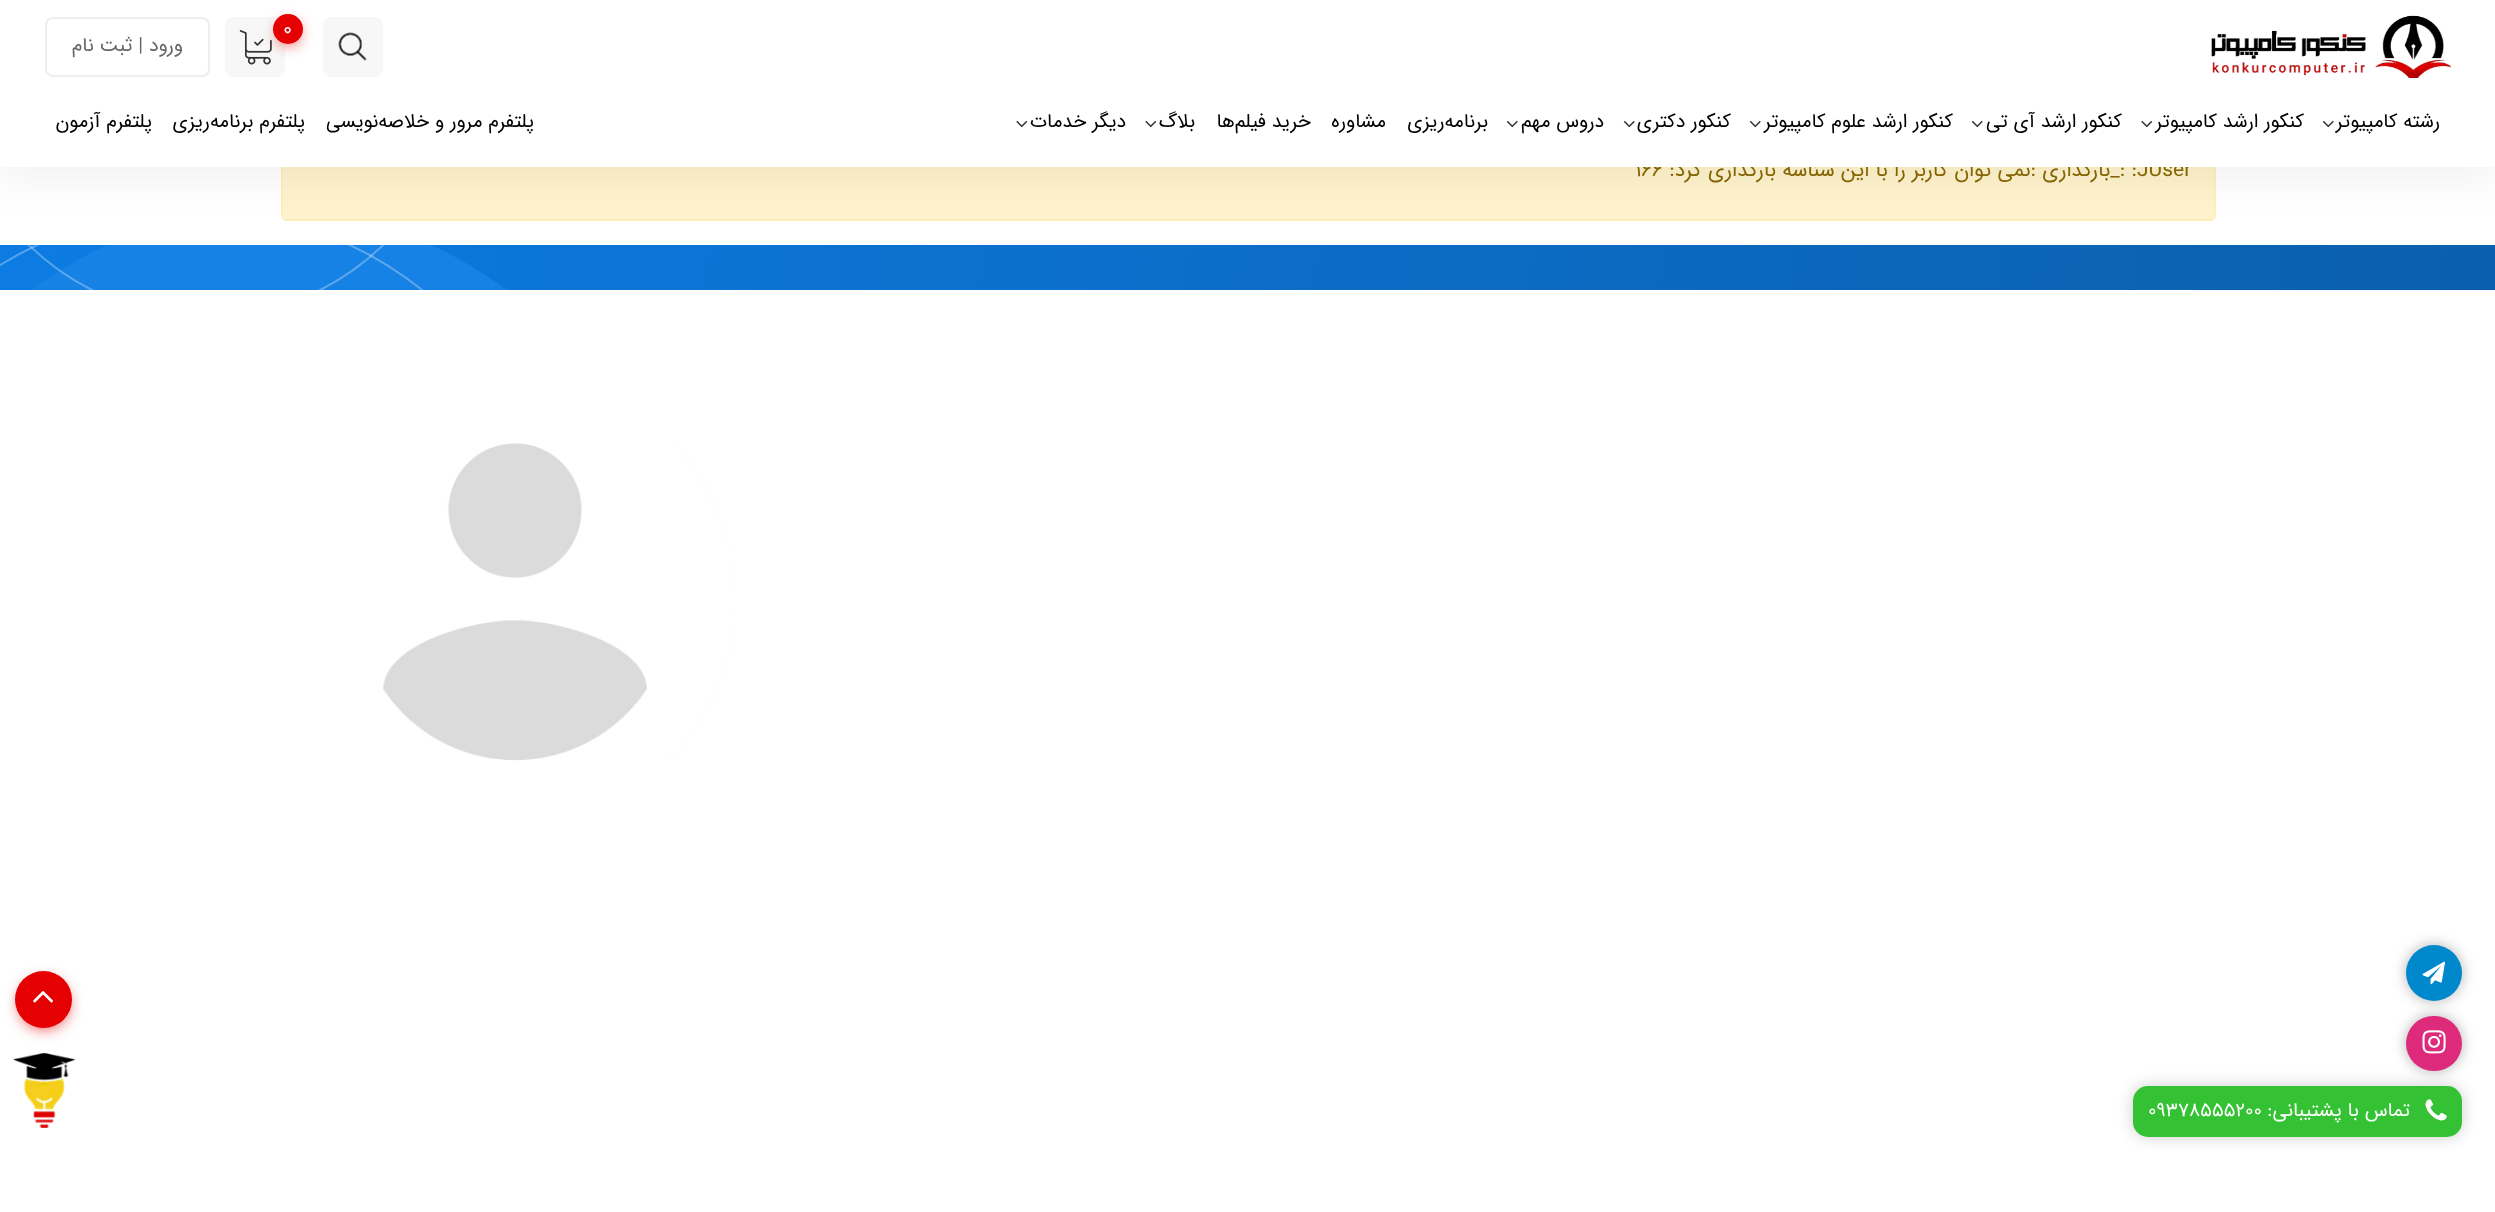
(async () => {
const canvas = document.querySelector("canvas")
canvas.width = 2495
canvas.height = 1212
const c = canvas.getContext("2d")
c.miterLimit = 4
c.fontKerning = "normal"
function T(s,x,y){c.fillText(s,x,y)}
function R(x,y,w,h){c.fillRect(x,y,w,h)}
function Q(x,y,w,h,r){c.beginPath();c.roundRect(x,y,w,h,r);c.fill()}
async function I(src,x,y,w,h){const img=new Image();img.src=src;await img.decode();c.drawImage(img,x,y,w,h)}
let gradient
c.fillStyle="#fff"
R(0,0,2495,1212)
gradient = c.createLinearGradient(21,95,2475,439)
gradient.addColorStop(0,"#0c7ce3")
gradient.addColorStop(1,"#0b5fad")
c.fillStyle = gradient
R(0,245,2495,45)
c.fillStyle="#fff3cd"
c.beginPath()
c.roundRect(282,121,1933,99,5)
c.fill()
c.strokeStyle="#ffeeba"
c.lineWidth=2
c.stroke()
c.save()
c.beginPath()
c.rect(0,245,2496,45)
c.clip()
c.fillStyle="#1782e5"
c.beginPath()
c.arc(269,603,393,0,7)
c.fill()
c.beginPath()
c.arc(193.5,576.5,366.5,0,7)
c.strokeStyle="#ffffff4d"
c.stroke()
c.beginPath()
c.arc(206,63,254,0,7)
c.stroke()
c.restore()
await I("1.png",382,443,353,318)
c.fillStyle="#0000000d"
c.filter="blur(19.5px)"
c.beginPath()
c.rect(0,15,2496,167)
c.fill()
c.filter="none"
c.font="21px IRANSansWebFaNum"
c.fillStyle="#856404"
T("JUser",2137,176)
c.direction="rtl"
T(": :_بارگذاری :نمی توان کاربر را با این شناسه بارگذاری کرد:",2137,176)
c.direction="ltr"
T("166",1635,176)
c.fillStyle="#fff"
R(0,0,2495,167)
await I("2.png",2211,15,240,63)
c.fillStyle="#f7f7f7"
Q(323,17,60,60,8)
await I("3.png",338,32,29,29)
Q(225,17,60,60,8)
await I("4.png",239,30,33,35)
c.fillStyle="#e50001cc"
c.filter="blur(7.5px)"
c.beginPath()
c.roundRect(278,23,21,21,10.5)
c.fill()
c.filter="none"
c.fillStyle="#e50001"
c.beginPath()
c.arc(288,29,15,0,7)
c.fill()
c.fillStyle="#fff"
T("0",283,35)
c.beginPath()
c.roundRect(46,18,163,58,7)
c.strokeStyle="#eee"
c.stroke()
c.direction="rtl"
c.font="19.5px IRANSansWebFaNum"
c.fillStyle="#666"
T("ورود | ثبت نام",183,51)
c.fillStyle="#000"
T("رشته کامپیوتر",2440,127)
await I("5.png",2322,120,12,8)
T("کنکور ارشد کامپیوتر",2304,127)
await I("6.png",2141,120,12,8)
T("کنکور ارشد آی‌ تی",2122,127)
await I("5.png",1971,120,12,8)
T("کنکور ارشد علوم کامپیوتر",1953,127)
await I("5.png",1749,120,12,8)
T("کنکور دکتری",1731,127)
await I("5.png",1623,120,12,8)
T("دروس مهم",1604,127)
await I("5.png",1506,120,12,8)
T("برنامه‌‌ریزی",1488,127)
T("مشاوره",1386,127)
T("خرید فیلم‌ها",1311,127)
T("بلاگ",1195,127)
await I("6.png",1145,120,12,8)
T("دیگر خدمات",1126,127)
await I("6.png",1016,120,12,8)
T("پلتفرم مرور و خلاصه‌نویسی",534,127)
T("پلتفرم برنامه‌ریزی",305,127)
T("پلتفرم آزمون",152,127)
c.fillStyle="#e50001cc"
c.filter="blur(7.5px)"
c.beginPath()
c.roundRect(20,980,48,48,24)
c.fill()
c.filter="none"
c.fillStyle="#e50001"
c.beginPath()
c.arc(43.5,999.5,28.5,0,7)
c.fill()
await I("7.png",33,991,20,12)
c.fillStyle="#0000004d"
c.filter="blur(7px)"
c.beginPath()
c.roundRect(2406,945,56,56,28)
c.fill()
c.filter="none"
c.fillStyle="#08c"
c.beginPath()
c.arc(2434,973,28,0,7)
c.fill()
await I("8.png",2422,961,23,24)
c.fillStyle="#00000033"
c.filter="blur(7.5px)"
c.beginPath()
c.roundRect(2133,1086,329,51,15)
c.fill()
c.filter="none"
c.fillStyle="#34c234"
Q(2133,1086,329,51,15)
c.fillStyle="#0000004d"
c.filter="blur(7px)"
c.beginPath()
c.roundRect(2406,1016,56,55,27.5)
c.fill()
c.filter="none"
c.fillStyle="#dd2a7b"
Q(2406,1016,56,55,27.5)
await I("9.png",2422,1030,24,24)
await I("10.png",2425,1099,22,22)
c.fillStyle="#fff"
T("تماس با پشتیبانی:",2410,1116)
c.direction="ltr"
T("09378555200",2148,1116)
await I("11.png",13,1053,63,75)
})()
